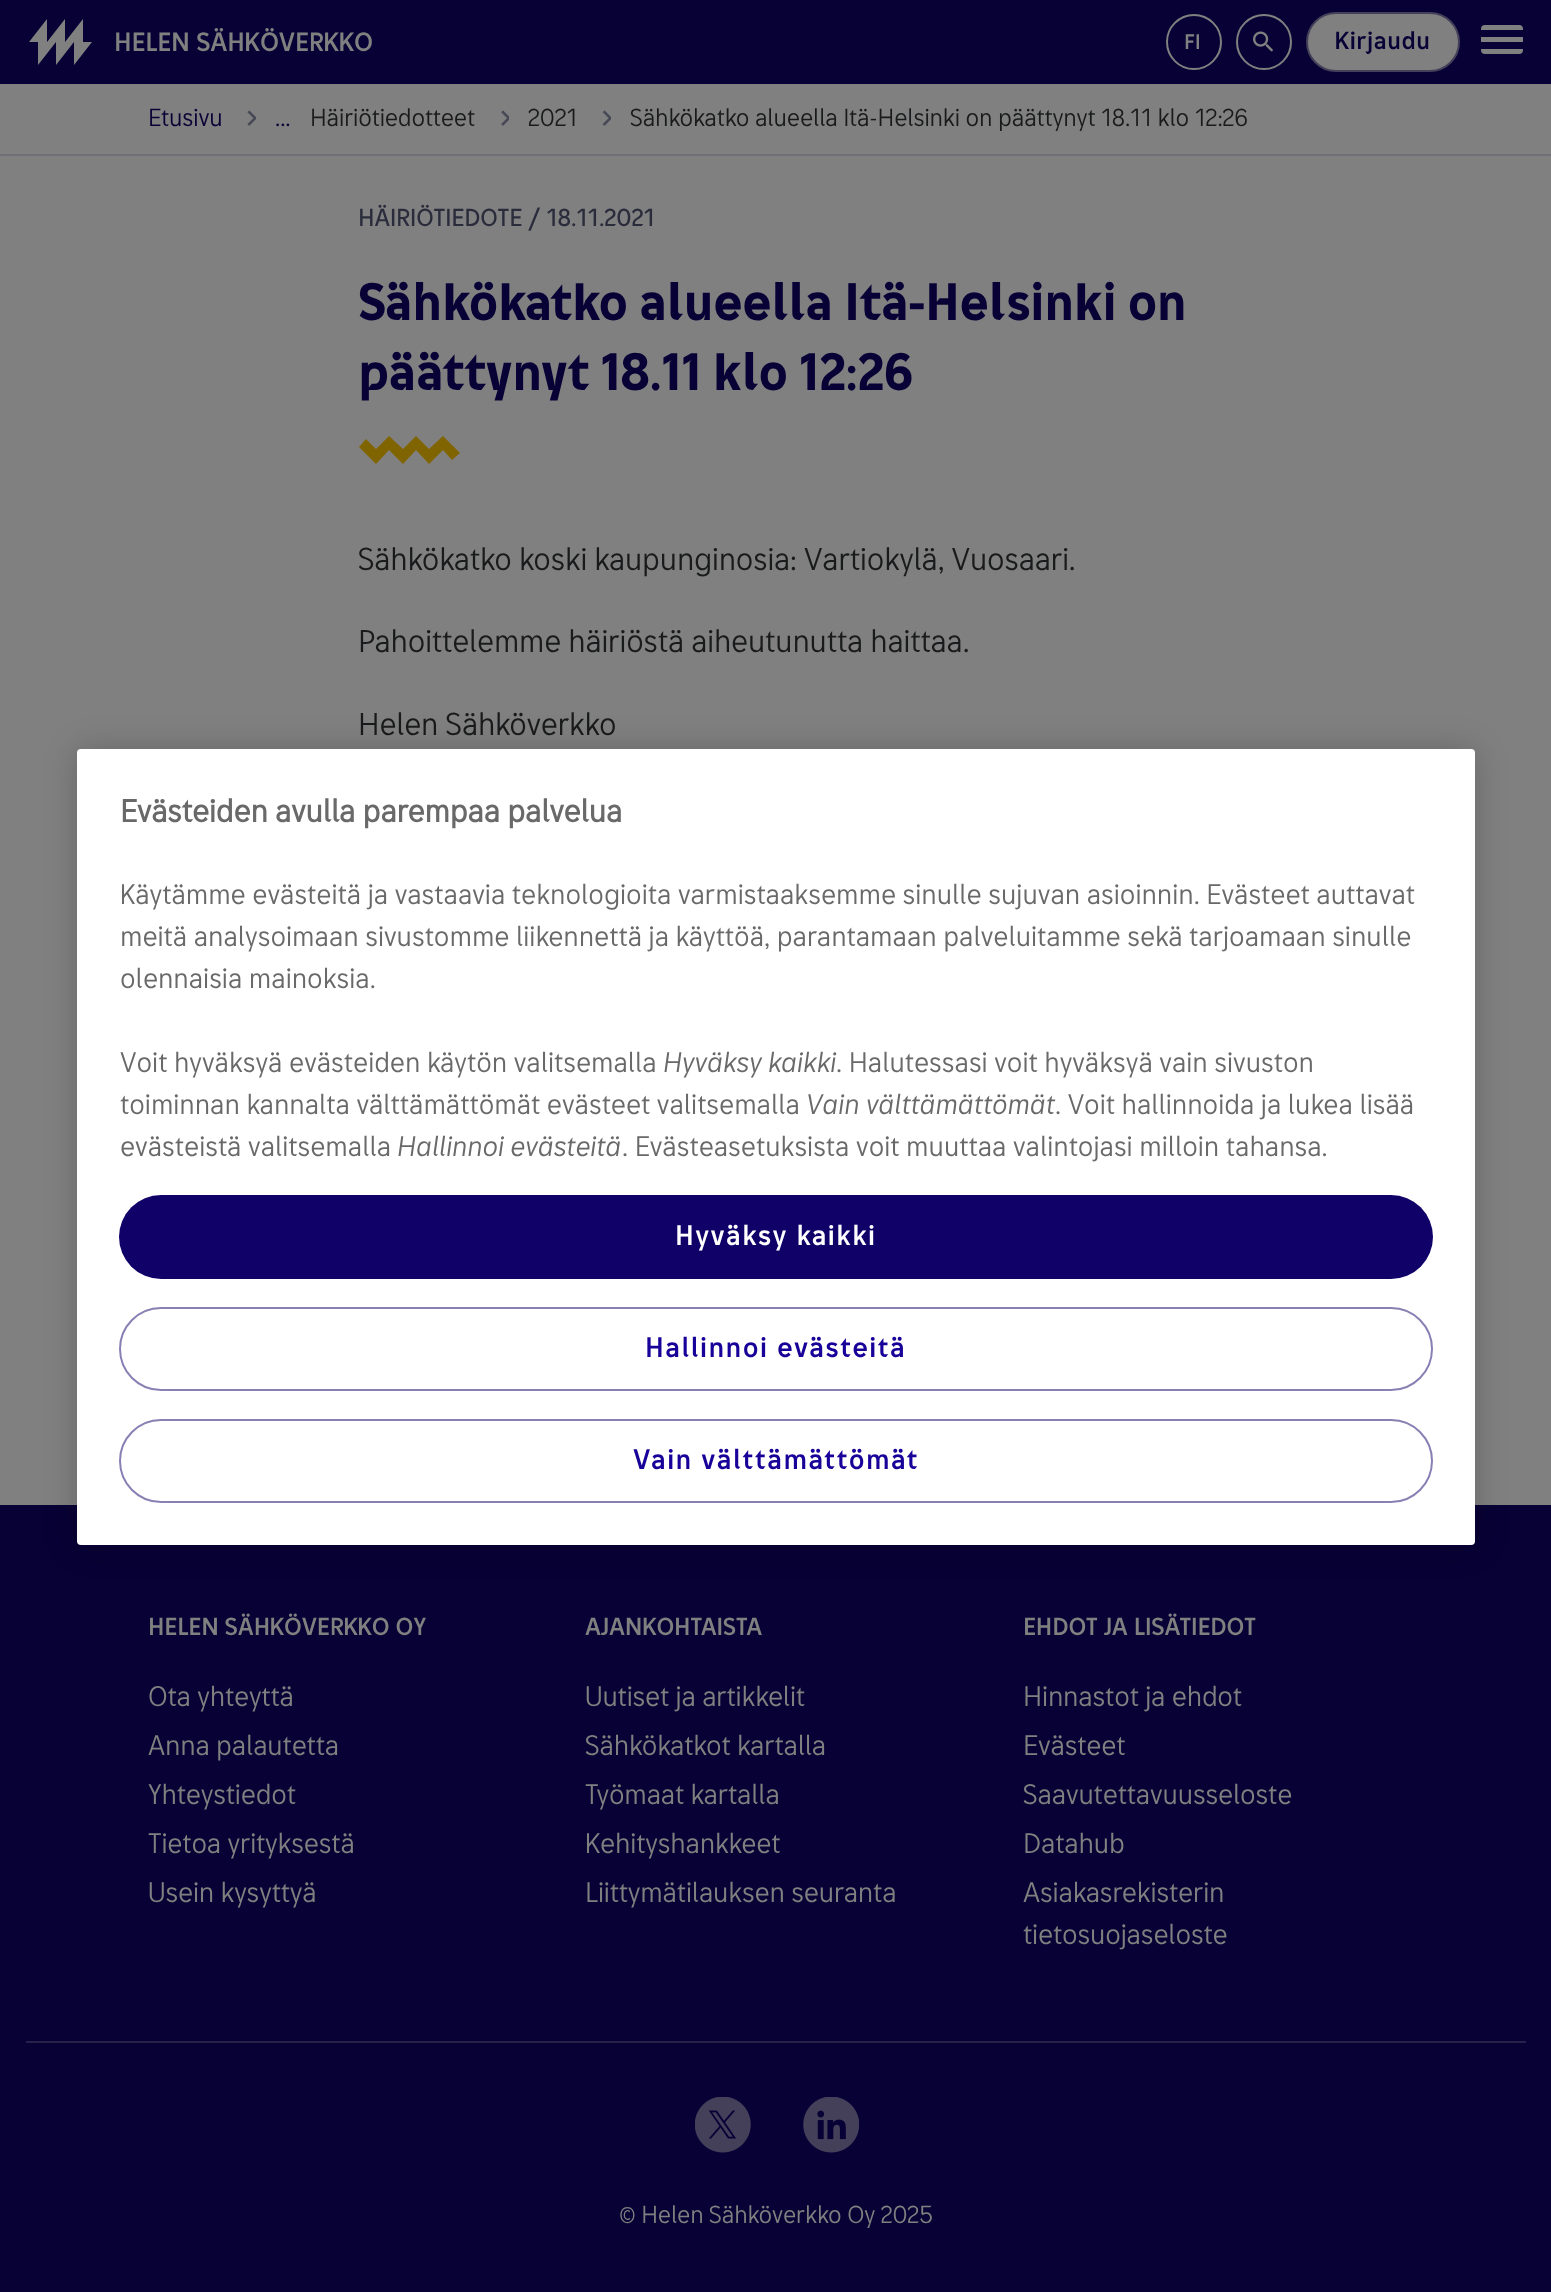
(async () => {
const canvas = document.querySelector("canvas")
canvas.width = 1551
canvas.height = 2292
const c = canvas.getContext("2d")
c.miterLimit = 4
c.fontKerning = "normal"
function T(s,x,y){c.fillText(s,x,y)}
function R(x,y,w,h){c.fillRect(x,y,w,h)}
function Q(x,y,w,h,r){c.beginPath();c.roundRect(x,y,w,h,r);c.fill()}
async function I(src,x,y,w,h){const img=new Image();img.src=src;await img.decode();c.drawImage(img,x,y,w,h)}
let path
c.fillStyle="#808080"
R(0,0,1551,2292)
c.fillStyle="#080135"
R(0,0,1551,84)
c.fillStyle="#808080"
path = new Path2D("M83 42v-23l-18 23v-23l-18 23v-23l-18 23h9v23l18-23v23l18-23v23l18-23z")
c.fill(path)
c.letterSpacing="-0.15px"
c.font="bold 26.25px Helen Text"
T("HELEN SÄHKÖVERKKO",114,51)
c.beginPath()
c.arc(1194,42,27,0,7)
c.strokeStyle="#808080"
c.lineWidth=2
c.stroke()
c.letterSpacing="0.5px"
c.font="bold 21px Helen Text"
T("FI",1184,49)
c.beginPath()
c.arc(1264,42,27,0,7)
c.stroke()
await I("1.png",1253,31,20,21)
c.beginPath()
c.roundRect(1307,13,152,58,29)
c.fill()
c.strokeStyle="#44405a"
c.stroke()
c.font="bold 24.5px Helen Text"
c.fillStyle="#080135"
T("Kirjaudu",1335,49)
c.fillStyle="#808080"
c.beginPath()
c.roundRect(1481,25,42,5,[4,4,0,0])
c.fill()
R(1481,37,42,5)
c.beginPath()
c.roundRect(1481,49,42,5,[0,0,4,4])
c.fill()
c.fillStyle="#707076"
R(0,154,1551,2)
c.letterSpacing="-0.15px"
c.font="24.5px Helen Text"
c.fillStyle="#080135"
T("Etusivu",148,126)
await I("2.png",247,110,9,16)
T("...",275,126)
c.fillStyle="#191a1b"
T("Häiriötiedotteet",310,126)
await I("3.png",501,110,8,16)
T("2021",528,126)
await I("4.png",602,110,9,16)
T("Sähkökatko alueella Itä-Helsinki on päättynyt 18.11 klo 12:26",630,126)
c.font="500 24.5px Helen Text"
c.fillStyle="#2a2c3c"
T("HÄIRIÖTIEDOTE / 18.11.2021",358,226)
c.font="bold 52.5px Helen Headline"
c.fillStyle="#080135"
T("Sähkökatko alueella Itä-Helsinki on",358,320)
T("päättynyt 18.11 klo 12:26",358,390)
c.fillStyle="#806400"
path = new Path2D("M403 464l-14-14l-13 14l-17-17l7-8l10 10l13-13l14 13l13-13l13 13l14-13l17 17l-8 7l-9-10l-14 14l-13-14z")
c.fill(path)
c.font="31.5px Helen Text"
c.fillStyle="#191a1b"
T("Sähkökatko koski kaupunginosia: Vartiokylä, Vuosaari.",358,570)
T("Pahoittelemme häiriöstä aiheutunutta haittaa.",358,652)
T("Helen Sähköverkko",358,735)
c.fillStyle="#080135"
R(0,1505,1551,787)
c.font="bold 24.5px Helen Text"
c.fillStyle="#808080"
T("HELEN SÄHKÖVERKKO OY",148,1635)
c.font="28px Helen Text"
T("Ota yhteyttä",148,1706)
T("Anna palautetta",148,1755)
T("Yhteystiedot",148,1804)
T("Tietoa yrityksestä",148,1853)
T("Usein kysyttyä",148,1902)
c.font="bold 24.5px Helen Text"
T("AJANKOHTAISTA",585,1635)
c.font="28px Helen Text"
T("Uutiset ja artikkelit",585,1706)
T("Sähkökatkot kartalla",585,1755)
T("Työmaat kartalla",585,1804)
T("Kehityshankkeet",585,1853)
T("Liittymätilauksen seuranta",585,1902)
c.font="bold 24.5px Helen Text"
T("EHDOT JA LISÄTIEDOT",1023,1635)
c.font="28px Helen Text"
T("Hinnastot ja ehdot",1023,1706)
T("Evästeet",1023,1755)
T("Saavutettavuusseloste",1023,1804)
T("Datahub",1023,1853)
T("Asiakasrekisterin",1023,1902)
T("tietosuojaseloste",1023,1944)
c.fillStyle="#262148"
R(26,2041,1500,2)
await I("5.png",695,2097,56,56)
await I("6.png",803,2097,56,56)
c.font="24.5px Helen Text"
c.fillStyle="#808080"
T("© Helen Sähköverkko Oy 2025",619,2223)
c.fillStyle="#00000033"
c.filter="blur(16px)"
c.beginPath()
c.roundRect(77,749,1398,796,4)
c.fill()
c.filter="none"
c.fillStyle="#fff"
Q(77,749,1398,796,4)
c.letterSpacing="0px"
c.font="bold 31.5px 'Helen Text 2'"
c.fillStyle="#696969"
T("Evästeiden avulla parempaa palvelua",120,822)
c.font="28px Helen Text"
T("Käytämme evästeitä ja vastaavia teknologioita varmistaaksemme sinulle sujuvan asioinnin. Evästeet auttavat",120,904)
T("meitä analysoimaan sivustomme liikennettä ja käyttöä, parantamaan palveluitamme sekä tarjoamaan sinulle",120,946)
T("olennaisia mainoksia.",120,988)
T("Voit hyväksyä evästeiden käytön valitsemalla",120,1072)
c.letterSpacing="-0.15px"
c.font="italic 28px Helen Text"
T("Hyväksy kaikki",663,1072)
c.letterSpacing="0px"
c.font="28px Helen Text"
T(". Halutessasi voit hyväksyä vain sivuston",836,1072)
T("toiminnan kannalta välttämättömät evästeet valitsemalla",120,1114)
c.letterSpacing="-0.15px"
c.font="italic 28px Helen Text"
T("Vain välttämättömät",806,1114)
c.letterSpacing="0px"
c.font="28px Helen Text"
T(". Voit hallinnoida ja lukea lisää",1055,1114)
T("evästeistä valitsemalla",120,1156)
c.letterSpacing="-0.15px"
c.font="italic 28px Helen Text"
T("Hallinnoi evästeitä",397,1156)
c.letterSpacing="0px"
c.font="28px Helen Text"
T(". Evästeasetuksista voit muuttaa valintojasi milloin tahansa.",622,1156)
c.fillStyle="#100169"
Q(119,1195,1314,84,42)
c.letterSpacing="1.4px"
c.font="bold 28px Helen Text"
c.fillStyle="#fff"
T("Hyväksy kaikki",675,1245)
c.beginPath()
c.roundRect(120,1308,1312,82,41)
c.strokeStyle="#8780b4"
c.stroke()
c.fillStyle="#170198"
T("Hallinnoi evästeitä",645,1357)
c.beginPath()
c.roundRect(120,1420,1312,82,41)
c.stroke()
T("Vain välttämättömät",633,1469)
})()
